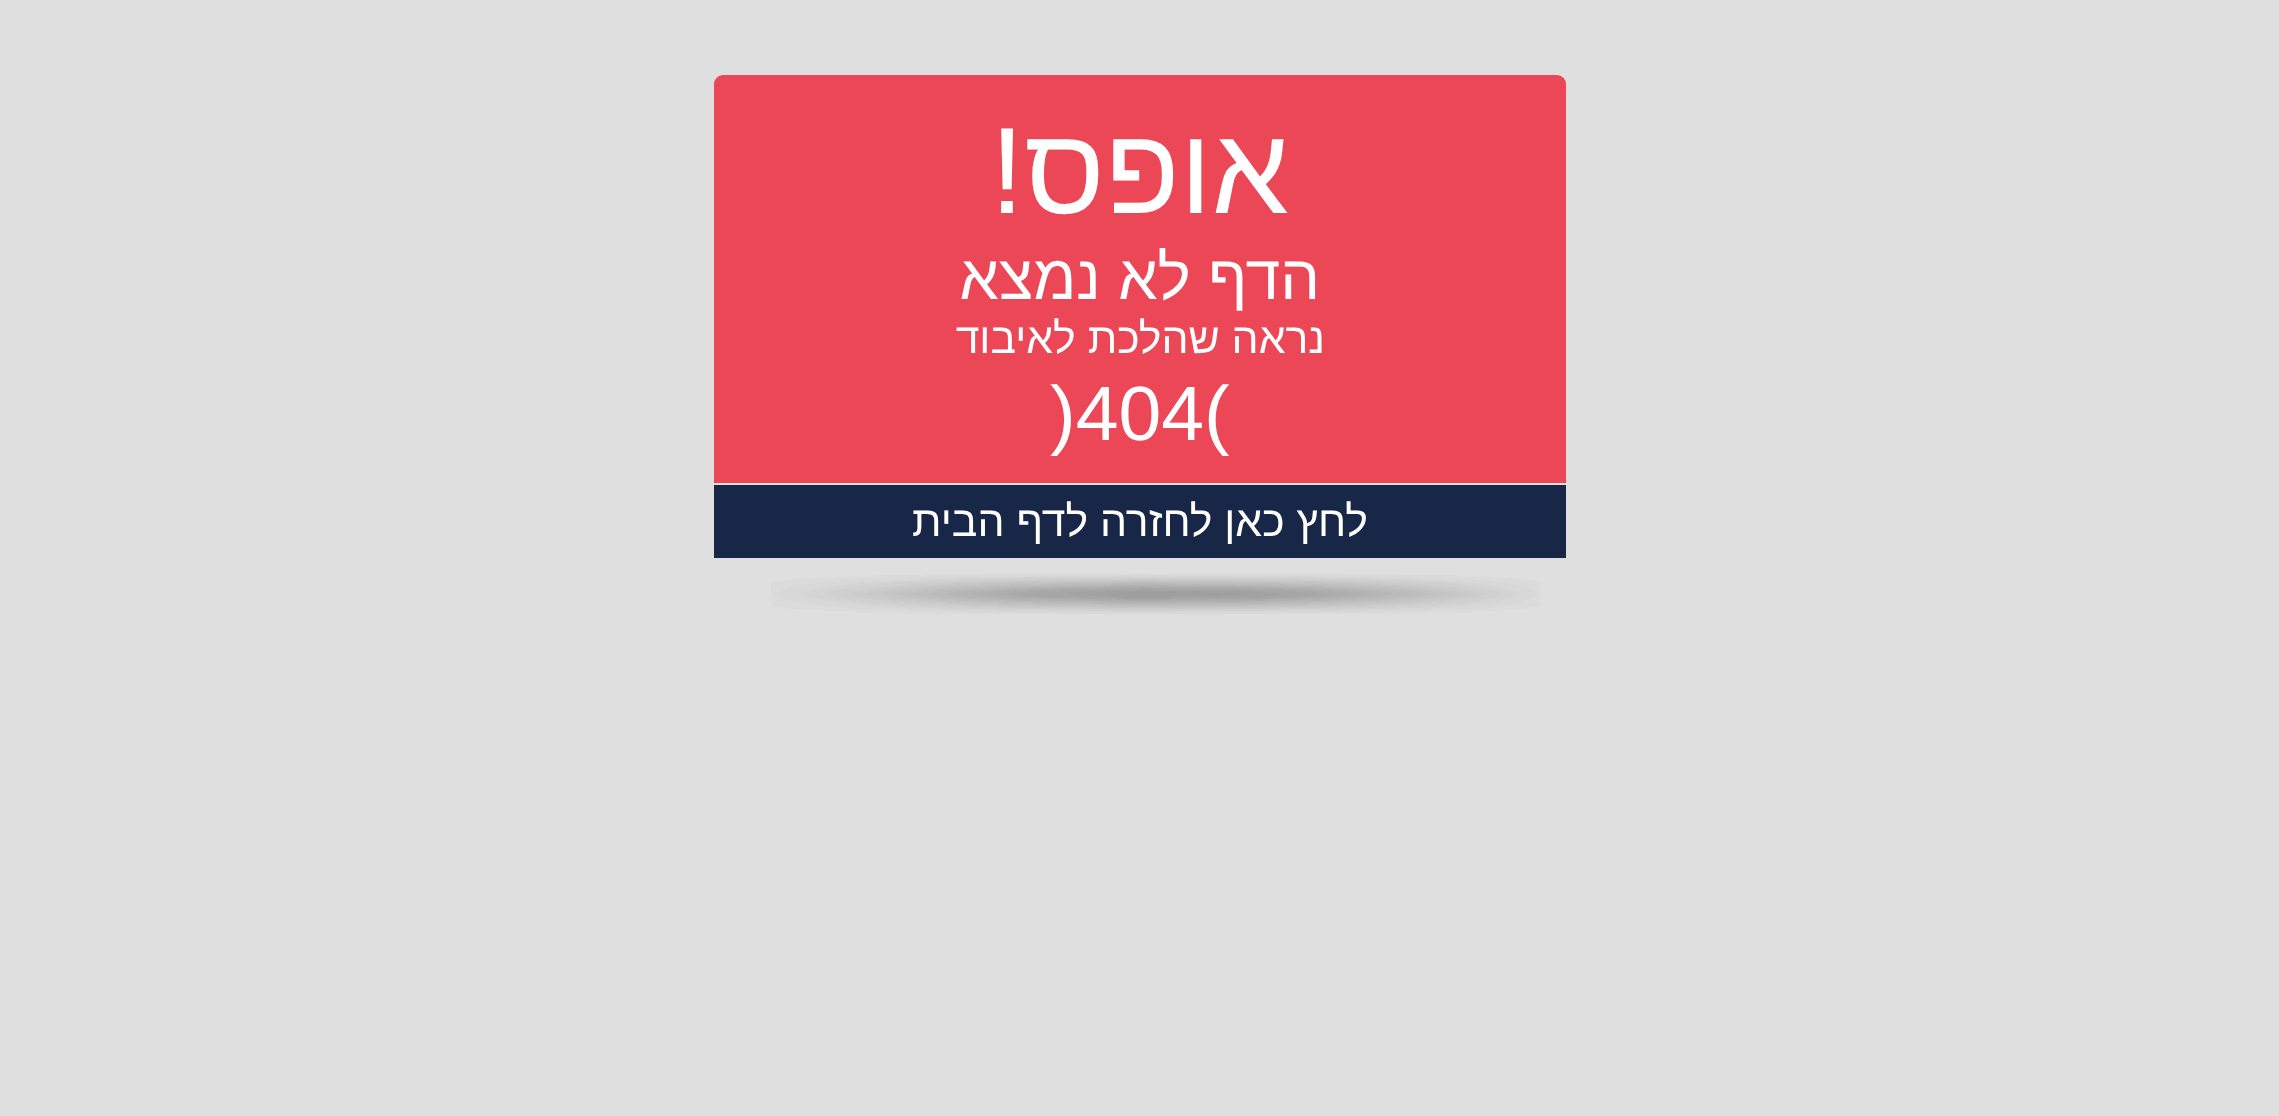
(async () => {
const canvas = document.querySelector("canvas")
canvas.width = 2279
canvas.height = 1116
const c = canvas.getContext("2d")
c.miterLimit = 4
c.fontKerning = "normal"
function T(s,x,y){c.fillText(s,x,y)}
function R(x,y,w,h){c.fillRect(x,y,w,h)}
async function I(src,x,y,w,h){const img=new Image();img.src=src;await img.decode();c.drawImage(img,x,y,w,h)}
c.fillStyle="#dfdfdf"
R(0,0,2279,1116)
c.fillStyle="#ec4756"
c.beginPath()
c.roundRect(714,75,852,408,[9,9,0,0])
c.fill()
c.direction="rtl"
c.font="123px Liberation Sans"
c.fillStyle="#fff"
T("אופס!",1289,213)
c.font="62.75px Liberation Sans"
T("הדף לא נמצא",1320,299)
c.font="42.75px Liberation Sans"
T("נראה שהלכת לאיבוד",1325,353)
c.direction="ltr"
c.font="77px Liberation Sans"
T(")404(",1050,440)
c.fillStyle="#182647"
R(714,485,852,73)
c.direction="rtl"
c.font="42.75px Liberation Sans"
c.fillStyle="#fff"
T("לחץ כאן לחזרה לדף הבית",1368,536)
await I("1.png",771,574,769,40)
})()
